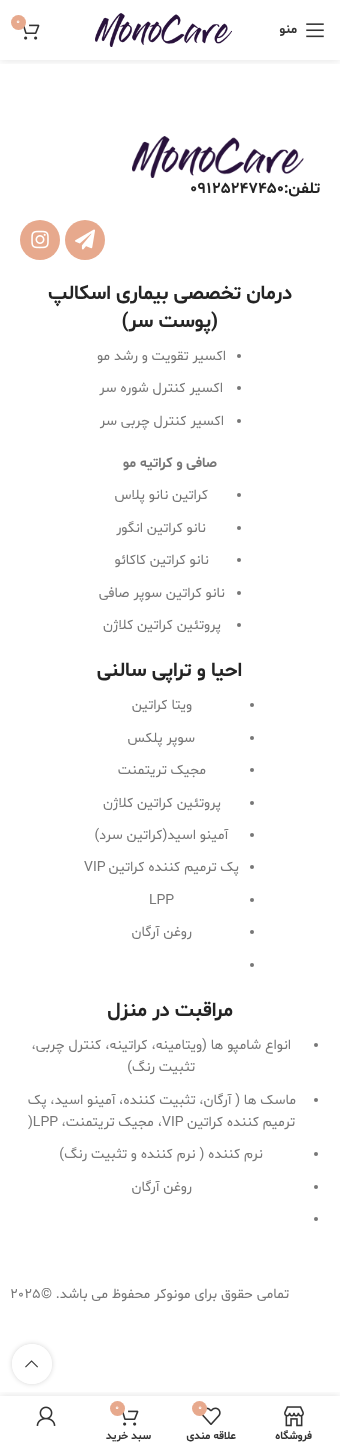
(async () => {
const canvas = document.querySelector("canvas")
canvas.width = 340
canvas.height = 1451
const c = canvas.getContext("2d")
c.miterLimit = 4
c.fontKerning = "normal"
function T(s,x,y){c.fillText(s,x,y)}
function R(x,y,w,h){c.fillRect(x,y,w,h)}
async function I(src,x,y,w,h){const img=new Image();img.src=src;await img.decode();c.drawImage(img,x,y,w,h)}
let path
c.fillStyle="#fff"
R(0,0,340,1451)
c.save()
c.beginPath()
c.rect(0,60,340,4)
c.clip()
c.fillStyle="#0000001a"
c.filter="blur(4px)"
c.beginPath()
c.rect(0,1,340,60)
c.fill()
c.filter="none"
c.restore()
await I("1.png",95,13,137,34)
await I("2.png",23,24,17,16)
c.fillStyle="#e7a98d"
c.beginPath()
c.arc(18.5,22.5,7.5,0,7)
c.fill()
c.font="9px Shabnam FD"
c.fillStyle="#fff"
T("0",16,24)
await I("3.png",306,23,18,15)
c.direction="rtl"
c.font="bold 13px Shabnam FD"
c.fillStyle="#333"
T("منو",297,33)
await I("4.png",132,136,172,42)
c.font="bold 16px Shabnam FD"
c.fillStyle="#242424"
T("تلفن:",320,193)
c.direction="ltr"
T("09125247450",190,193)
c.fillStyle="#e7a98d"
c.beginPath()
c.arc(85,240,20,0,7)
c.fill()
await I("5.png",75,229,20,21)
c.beginPath()
c.arc(40,240,20,0,7)
c.fill()
await I("6.png",31,230,18,19)
c.direction="rtl"
c.font="bold 20px Shabnam FD"
c.fillStyle="#242424"
T("درمان تخصصی بیماری اسکالپ",292,299)
T("(پوست سر)",218,327)
c.fillStyle="#777"
c.beginPath()
c.arc(239,356,2,0,7)
c.fill()
c.font="14px Shabnam FD"
T("اکسیر تقویت و رشد مو",226,360)
c.beginPath()
c.arc(239,388,2,0,7)
c.fill()
T("اکسیر کنترل شوره سر",223,392)
c.beginPath()
c.arc(239,421,2,0,7)
c.fill()
T("اکسیر کنترل چربی سر",224,425)
c.font="bold 14px Shabnam FD"
T("صافی و کراتیه مو",217,467)
c.beginPath()
c.arc(239,495,2,0,7)
c.fill()
c.font="14px Shabnam FD"
T("کراتین نانو پلاس",208,499)
c.beginPath()
c.arc(239,528,2,0,7)
c.fill()
T("نانو کراتین انگور",206,532)
c.beginPath()
c.arc(239,560,2,0,7)
c.fill()
T("نانو کراتین کاکائو",209,564)
c.beginPath()
c.arc(239,593,2,0,7)
c.fill()
T("نانو کراتین سوپر صافی",225,597)
c.beginPath()
c.arc(239,625,2,0,7)
c.fill()
T("پروتئین کراتین کلاژن",221,629)
c.font="bold 20px Shabnam FD"
c.fillStyle="#242424"
T("احیا و تراپی سالنی",242,676)
c.fillStyle="#777"
c.beginPath()
c.arc(252,705,2,0,7)
c.fill()
c.font="14px Shabnam FD"
T("ویتا کراتین",192,709)
c.beginPath()
c.arc(252,738,2,0,7)
c.fill()
T("سوپر پلکس",195,742)
c.beginPath()
c.arc(252,770,2,0,7)
c.fill()
T("مجیک تریتمنت",206,774)
c.beginPath()
c.arc(252,803,2,0,7)
c.fill()
T("پروتئین کراتین کلاژن",221,807)
c.beginPath()
c.arc(252,835,2,0,7)
c.fill()
T("آمینو اسید(کراتین سرد)",228,839)
c.beginPath()
c.arc(252,867,2,0,7)
c.fill()
T("پک ترمیم کننده کراتین",239,871)
c.direction="ltr"
T("VIP",84,871)
c.beginPath()
c.arc(252,900,2,0,7)
c.fill()
T("LPP",149,904)
c.beginPath()
c.arc(252,932,2,0,7)
c.fill()
c.direction="rtl"
T("روغن آرگان",192,936)
c.beginPath()
c.arc(252,965,2,0,7)
c.fill()
c.font="bold 20px Shabnam FD"
c.fillStyle="#242424"
T("مراقبت در منزل",233,1016)
c.fillStyle="#777"
c.beginPath()
c.arc(316,1045,2,0,7)
c.fill()
c.font="14px Shabnam FD"
T("انواع شامپو ها (ویتامینه، کراتینه، کنترل چربی،",291,1049)
T("تثبیت رنگ)",195,1071)
c.beginPath()
c.arc(316,1100,2,0,7)
c.fill()
T("ماسک ها ( آرگان، تثبیت کننده، آمینو اسید، پک",296,1104)
T("ترمیم کننده کراتین",295,1126)
c.direction="ltr"
T("VIP",162,1126)
c.direction="rtl"
T("، مجیک تریتمنت،",162,1126)
c.direction="ltr"
T(")LPP",28,1126)
c.beginPath()
c.arc(316,1154,2,0,7)
c.fill()
c.direction="rtl"
T("نرم کننده ( نرم کننده و تثبیت رنگ)",263,1158)
c.beginPath()
c.arc(316,1187,2,0,7)
c.fill()
T("روغن آرگان",192,1191)
c.beginPath()
c.arc(316,1219,2,0,7)
c.fill()
T("تمامی حقوق برای مونوکر محفوظ می باشد. ©",289,1298)
c.direction="ltr"
T("2025",10,1298)
c.save()
path = new Path2D("M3 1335h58v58h-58zm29 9c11 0 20 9 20 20c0 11-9 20-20 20c-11 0-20-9-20-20c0-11 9-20 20-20z")
c.clip(path,"evenodd")
c.fillStyle="#0000002b"
c.filter="blur(2.5px)"
c.beginPath()
c.roundRect(12,1344,40,40,20)
c.fill()
c.filter="none"
c.restore()
c.fillStyle="#ffffffe6"
c.beginPath()
c.arc(32,1364,20,0,7)
c.fill()
await I("7.png",25,1360,13,8)
c.save()
c.beginPath()
c.rect(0,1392,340,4)
c.clip()
c.fillStyle="#0000001f"
c.filter="blur(4.5px)"
c.beginPath()
c.rect(0,1396,340,55)
c.fill()
c.filter="none"
c.restore()
await I("8.png",284,1406,20,21)
c.direction="rtl"
c.font="bold 11px Shabnam FD"
c.fillStyle="#333"
T("فروشگاه",312,1439)
await I("9.png",201,1407,20,18)
c.fillStyle="#e7a98d"
c.beginPath()
c.arc(199.5,1408.5,7.5,0,7)
c.fill()
c.direction="ltr"
c.font="9px Shabnam FD"
c.fillStyle="#fff"
T("0",198,1410)
c.direction="rtl"
c.font="bold 11px Shabnam FD"
c.fillStyle="#333"
T("علاقه مندی",236,1439)
await I("2.png",122,1410,17,16)
c.fillStyle="#e7a98d"
c.beginPath()
c.arc(117.5,1408.5,7.5,0,7)
c.fill()
c.direction="ltr"
c.font="9px Shabnam FD"
c.fillStyle="#fff"
T("0",115,1410)
c.direction="rtl"
c.font="bold 11px Shabnam FD"
c.fillStyle="#333"
T("سبد خرید",151,1439)
await I("10.png",36,1406,20,20)
})()
